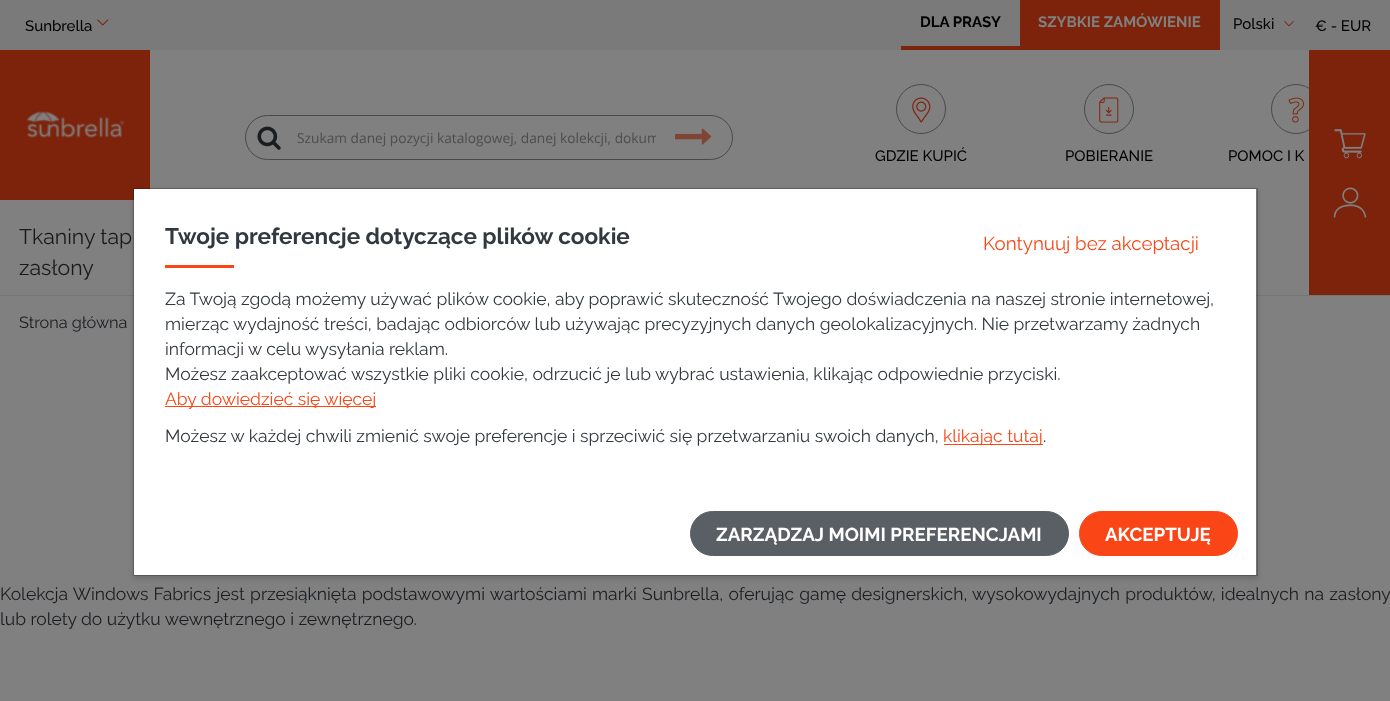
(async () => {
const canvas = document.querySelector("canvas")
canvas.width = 1390
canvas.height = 701
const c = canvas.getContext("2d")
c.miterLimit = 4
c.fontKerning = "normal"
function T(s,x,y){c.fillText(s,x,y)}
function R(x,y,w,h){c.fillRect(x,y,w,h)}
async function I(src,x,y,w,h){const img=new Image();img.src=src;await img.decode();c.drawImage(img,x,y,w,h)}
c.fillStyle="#808080"
R(0,0,1390,701)
c.fillStyle="#7a7a7a"
R(0,0,1390,50)
c.font="500 15px Raleway"
c.fillStyle="#000"
T("Sunbrella",25,31)
await I("1.png",97,19,12,7)
c.fillStyle="#7d230b"
R(901,46,119,4)
c.font="bold 15px Raleway"
c.fillStyle="#000"
T("DLA PRASY",920,27)
c.fillStyle="#7d230b"
R(1020,0,200,50)
c.fillStyle="#808080"
T("SZYBKIE ZAMÓWIENIE",1038,27)
c.font="500 15px Raleway"
c.fillStyle="#000"
T("Polski",1233,29)
await I("2.png",1284,21,10,6)
T("€ - EUR",1315,31)
await I("3.png",0,50,150,150)
c.beginPath()
c.roundRect(245.5,115.5,487,44,22)
c.strokeStyle="#484a4b"
c.stroke()
await I("4.png",257,126,24,24)
c.save()
c.beginPath()
c.rect(296,129,360,19)
c.clip()
c.font="13.75px Open Sans"
c.fillStyle="#4d4d4d"
T("Szukam danej pozycji katalogowej, danej kolekcji, dokum",297,143)
c.restore()
await I("5.png",675,128,37,17)
c.beginPath()
c.arc(921,109,24.5,0,7)
c.stroke()
await I("6.png",912,97,19,26)
T("GDZIE KUPIĆ",875,161)
c.beginPath()
c.arc(1109,109,24.5,0,7)
c.stroke()
await I("7.png",1099,97,20,26)
T("POBIERANIE",1065,161)
c.beginPath()
c.arc(1296,109,24.5,0,7)
c.stroke()
await I("8.png",1288,97,16,26)
T("POMOC I K",1228,161)
c.fillStyle="#7d230b"
R(1309,50,81,245)
await I("9.png",1334,129,32,30)
await I("10.png",1333,187,34,31)
c.font="21.25px Raleway"
c.fillStyle="#1a1a1a"
T("Tkaniny tap",19,244)
T("zasłony",19,275)
c.fillStyle="#777676"
R(0,295,1390,1)
c.font="16.25px Raleway"
c.fillStyle="#191c20"
T("Strona główna",19,328)
c.wordSpacing="0.75px"
c.font="17.5px Raleway"
T("Kolekcja Windows Fabrics jest przesiąknięta podstawowymi wartościami marki Sunbrella, oferując gamę designerskich, wysokowydajnych produktów, idealnych na zasłony",0,600)
c.wordSpacing="0px"
T("lub rolety do użytku wewnętrznego i zewnętrznego.",0,625)
c.fillStyle="#00000026"
c.filter="blur(2.5px)"
c.beginPath()
c.rect(133,190,1125,389)
c.fill()
c.filter="none"
c.fillStyle="#fff"
R(134,189,1122,386)
c.strokeStyle="#00000033"
c.strokeRect(133.5,188.5,1124,387)
c.font="bold 22.5px Raleway"
c.fillStyle="#32383f"
T("Twoje preferencje dotyczące plików cookie",165,244)
c.fillStyle="#fa4616"
R(165,265,69,3)
c.font="18.75px Raleway"
T("Kontynuuj bez akceptacji",983,250)
c.font="17.5px Raleway"
c.fillStyle="#32383f"
T("Za Twoją zgodą możemy używać plików cookie, aby poprawić skuteczność Twojego doświadczenia na naszej stronie internetowej,",165,305)
T("mierząc wydajność treści, badając odbiorców lub używając precyzyjnych danych geolokalizacyjnych. Nie przetwarzamy żadnych",165,330)
T("informacji w celu wysyłania reklam.",165,355)
T("Możesz zaakceptować wszystkie pliki cookie, odrzucić je lub wybrać ustawienia, klikając odpowiednie przyciski.",165,380)
c.fillStyle="#fa4616"
R(165,406,211,1)
T("Aby dowiedzieć się więcej",165,405)
c.fillStyle="#32383f"
T("Możesz w każdej chwili zmienić swoje preferencje i sprzeciwić się przetwarzaniu swoich danych,",165,442)
c.fillStyle="#fa4616"
R(944,444,99,1)
T("klikając tutaj",943,442)
c.fillStyle="#32383f"
T(".",1043,442)
c.fillStyle="#5a5f66"
c.beginPath()
c.roundRect(690.5,511.5,378,44,22)
c.fill()
c.strokeStyle="#5a5f66"
c.stroke()
c.font="bold 18.75px Raleway"
c.fillStyle="#fff"
T("ZARZĄDZAJ MOIMI PREFERENCJAMI",716,541)
c.fillStyle="#fa4616"
c.beginPath()
c.roundRect(1079.5,511.5,158,44,22)
c.fill()
c.strokeStyle="#fa4616"
c.stroke()
c.fillStyle="#fff"
T("AKCEPTUJĘ",1105,541)
})()
